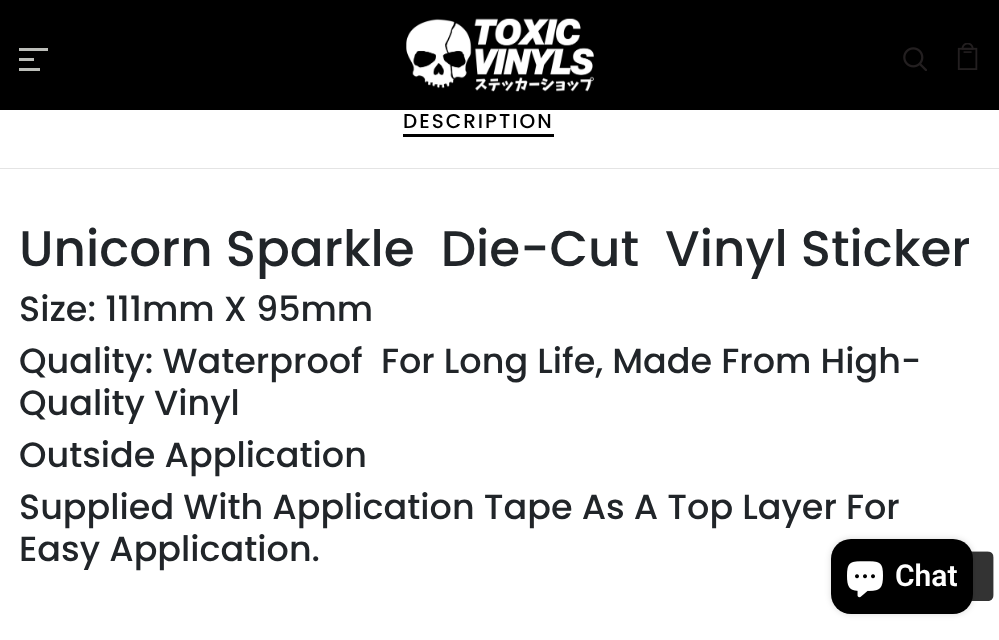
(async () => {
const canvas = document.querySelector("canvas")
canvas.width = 999
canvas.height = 640
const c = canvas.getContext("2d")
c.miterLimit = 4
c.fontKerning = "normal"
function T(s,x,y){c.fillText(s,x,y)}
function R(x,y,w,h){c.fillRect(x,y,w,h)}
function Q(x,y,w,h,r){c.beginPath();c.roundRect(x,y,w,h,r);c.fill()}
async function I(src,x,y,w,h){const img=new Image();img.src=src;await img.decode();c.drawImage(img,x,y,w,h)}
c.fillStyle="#fff"
R(0,0,999,640)
c.fillStyle="#000"
R(0,0,999,110)
c.fillStyle="#bcbeb9"
R(19,48,29,3)
R(19,58,15,3)
R(19,68,21,3)
await I("1.png",406,18,188,74)
await I("2.png",903,47,24,24)
await I("3.png",957,43,21,27)
c.fillStyle="#e4e4e4"
R(0,168,999,1)
c.letterSpacing="2px"
c.font="500 20px Poppins"
c.fillStyle="#000"
T("DESCRIPTION",403,128)
R(403,134,151,3)
c.letterSpacing="0px"
c.font="500 50px Poppins"
c.fillStyle="#212529"
T("Unicorn Sparkle  Die-Cut  Vinyl Sticker",19,266)
c.font="500 35px Poppins"
T("Size: 111mm X 95mm",19,321)
T("Quality: Waterproof  For Long Life, Made From High-",19,373)
T("Quality Vinyl",19,415)
T("Outside Application",19,467)
T("Supplied With Application Tape As A Top Layer For",19,519)
T("Easy Application.",19,561)
await I("5.png",971,551,23,50)
c.fillStyle="#00000026"
c.filter="blur(3px)"
c.beginPath()
c.roundRect(831,539,142,75,20)
c.fill()
c.filter="none"
c.fillStyle="#000"
Q(831,539,142,75,20)
await I("4.png",847,561,36,37)
c.font="600 30px Roboto"
c.fillStyle="#fff"
T("Chat",895,586)
})()
